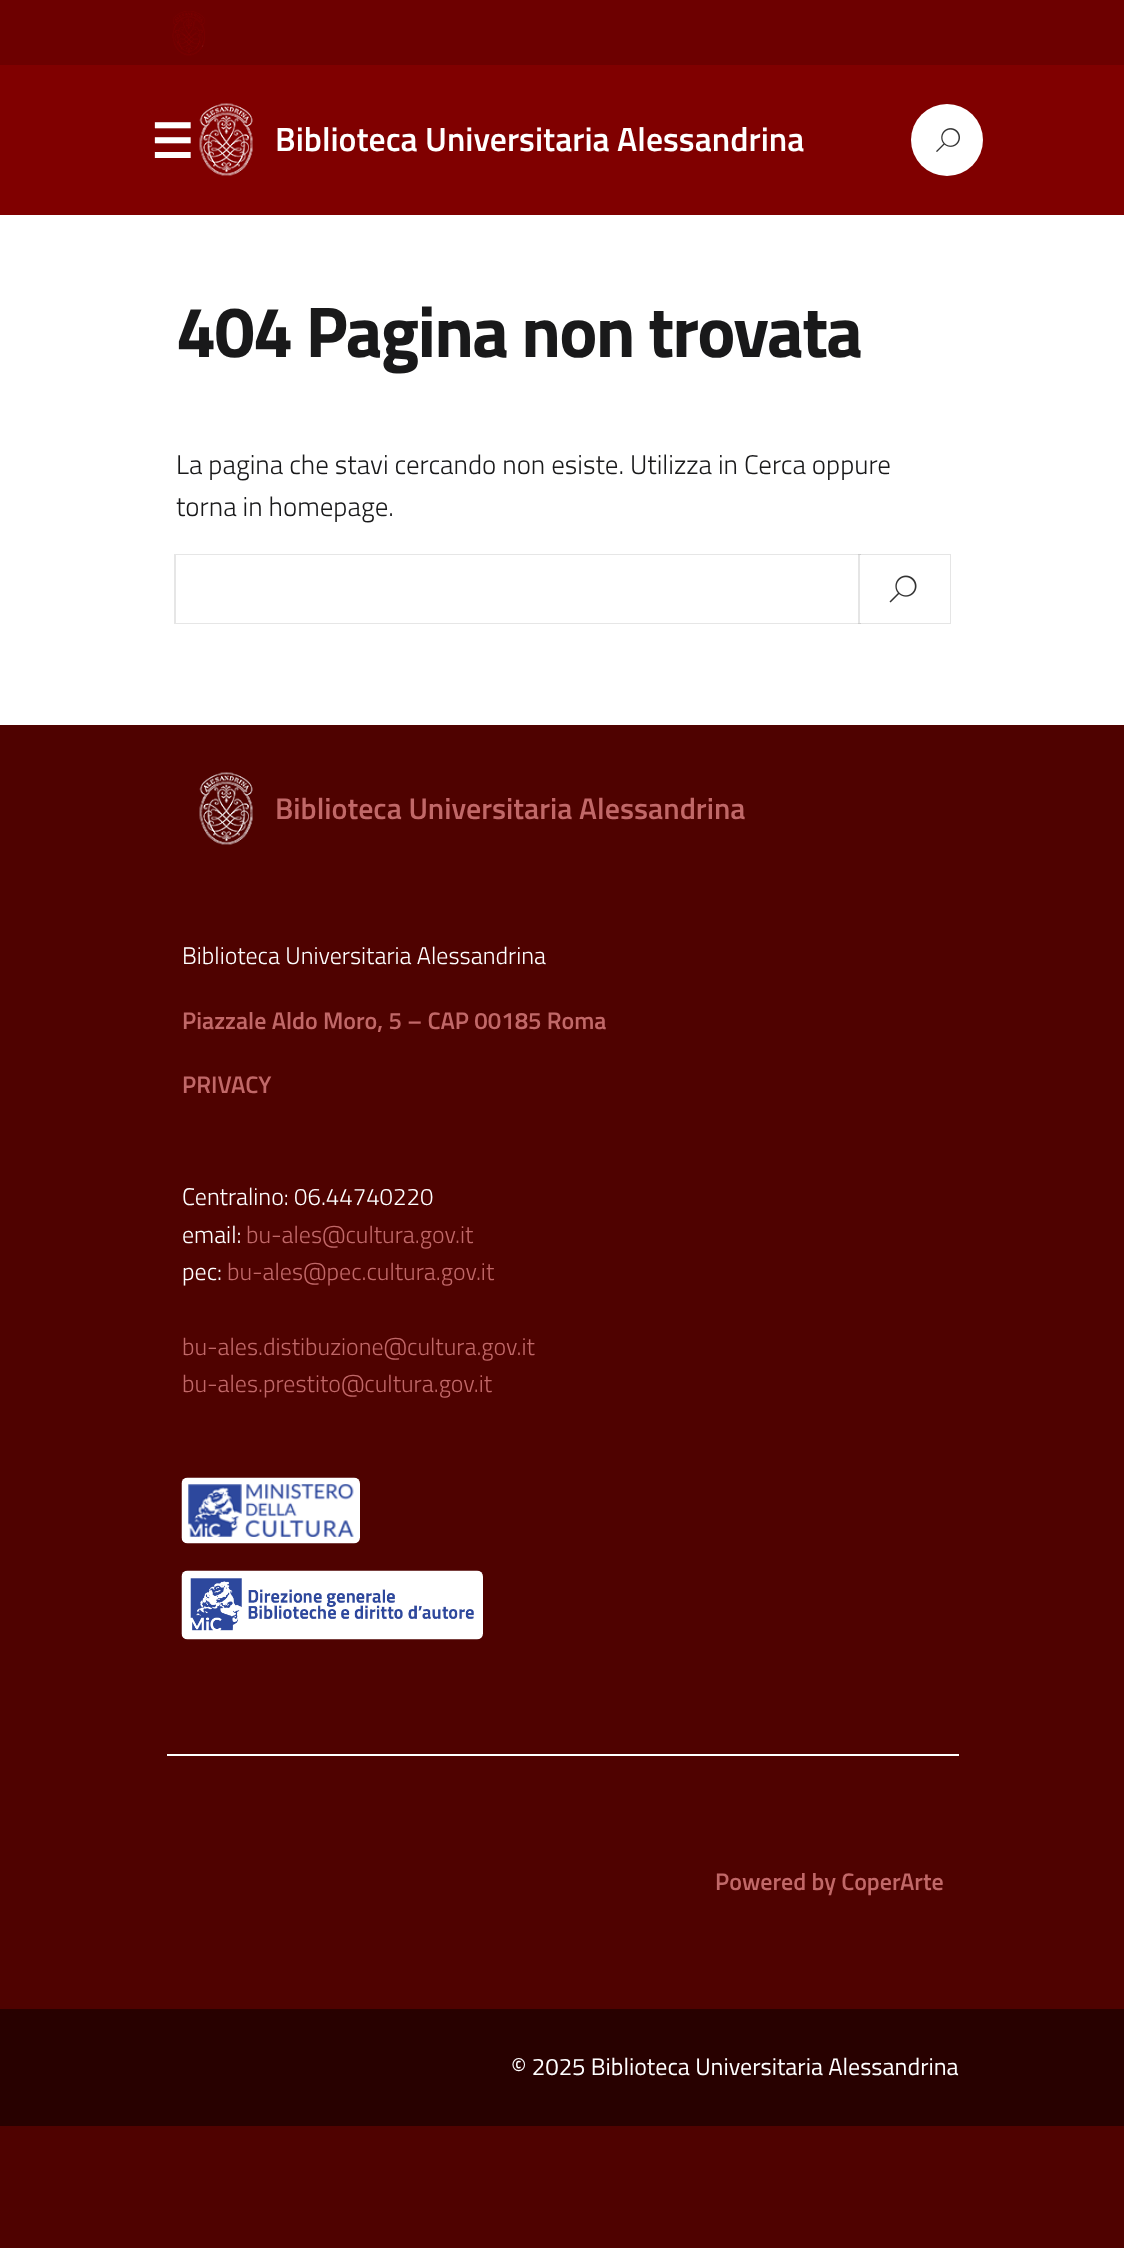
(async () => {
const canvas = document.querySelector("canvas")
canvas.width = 1124
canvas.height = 2248
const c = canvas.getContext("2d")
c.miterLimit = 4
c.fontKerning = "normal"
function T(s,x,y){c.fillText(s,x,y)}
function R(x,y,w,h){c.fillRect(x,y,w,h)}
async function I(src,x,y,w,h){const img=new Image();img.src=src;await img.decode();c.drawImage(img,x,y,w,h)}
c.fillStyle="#4f0200"
R(0,0,1124,2248)
c.fillStyle="#fff"
R(0,215,1124,510)
c.fillStyle="#800000"
R(0,65,1124,150)
c.fillStyle="#6d0000"
R(0,0,1124,65)
await I("1.png",172,11,33,45)
c.font="bold 47px DejaVu Sans"
c.fillStyle="#fff"
T("☰",151,158)
await I("2.png",199,103,54,73)
c.font="600 33.75px Titillium Web"
T("Biblioteca Universitaria Alessandrina",275,151)
c.beginPath()
c.arc(947,140,36,0,7)
c.fill()
await I("3.png",936,128,24,24)
c.letterSpacing="-1.8px"
c.font="bold 72px Titillium Web"
c.fillStyle="#19191a"
T("404 Pagina non trovata",176,357)
c.letterSpacing="0px"
c.font="300 27px Titillium Web"
T("La pagina che stavi cercando non esiste. Utilizza in Cerca oppure",176,474)
T("torna in homepage.",176,516)
c.strokeStyle="#e6e6e6"
c.lineWidth=2
c.strokeRect(175,555,685,68)
c.fillStyle="#fff"
R(176,555,684,68)
c.strokeStyle="#0000001a"
c.strokeRect(859,555,91,68)
R(860,555,90,68)
await I("4.png",889,575,28,28)
await I("5.png",199,772,54,73)
c.font="600 30px Titillium Web"
c.fillStyle="#c16868"
T("Biblioteca Universitaria Alessandrina",275,819)
c.font="300 24px Titillium Web"
c.fillStyle="#fff"
T("Biblioteca Universitaria Alessandrina",182,964)
c.font="600 24px Titillium Web"
c.fillStyle="#c16868"
T("Piazzale Aldo Moro, 5 – CAP 00185 Roma",182,1029)
T("PRIVACY",182,1093)
c.font="300 24px Titillium Web"
c.fillStyle="#fff"
T("Centralino: 06.44740220",182,1205)
T("email:",182,1243)
c.fillStyle="#c16868"
T("bu-ales@cultura.gov.it",246,1243)
c.fillStyle="#fff"
T("pec:",182,1280)
c.fillStyle="#c16868"
T("bu-ales@pec.cultura.gov.it",227,1280)
T("bu-ales.distibuzione@cultura.gov.it",182,1355)
T("bu-ales.prestito@cultura.gov.it",182,1392)
await I("6.png",181,1477,179,67)
await I("7.png",181,1570,302,70)
c.fillStyle="#fff"
R(167,1754,792,2)
c.font="600 24px Titillium Web"
c.fillStyle="#c16868"
T("Powered by CoperArte",715,1890)
c.fillStyle="#280100"
R(0,2009,1124,117)
c.font="24px Titillium Web"
c.fillStyle="#fff"
T("© 2025 Biblioteca Universitaria Alessandrina",511,2075)
})()
